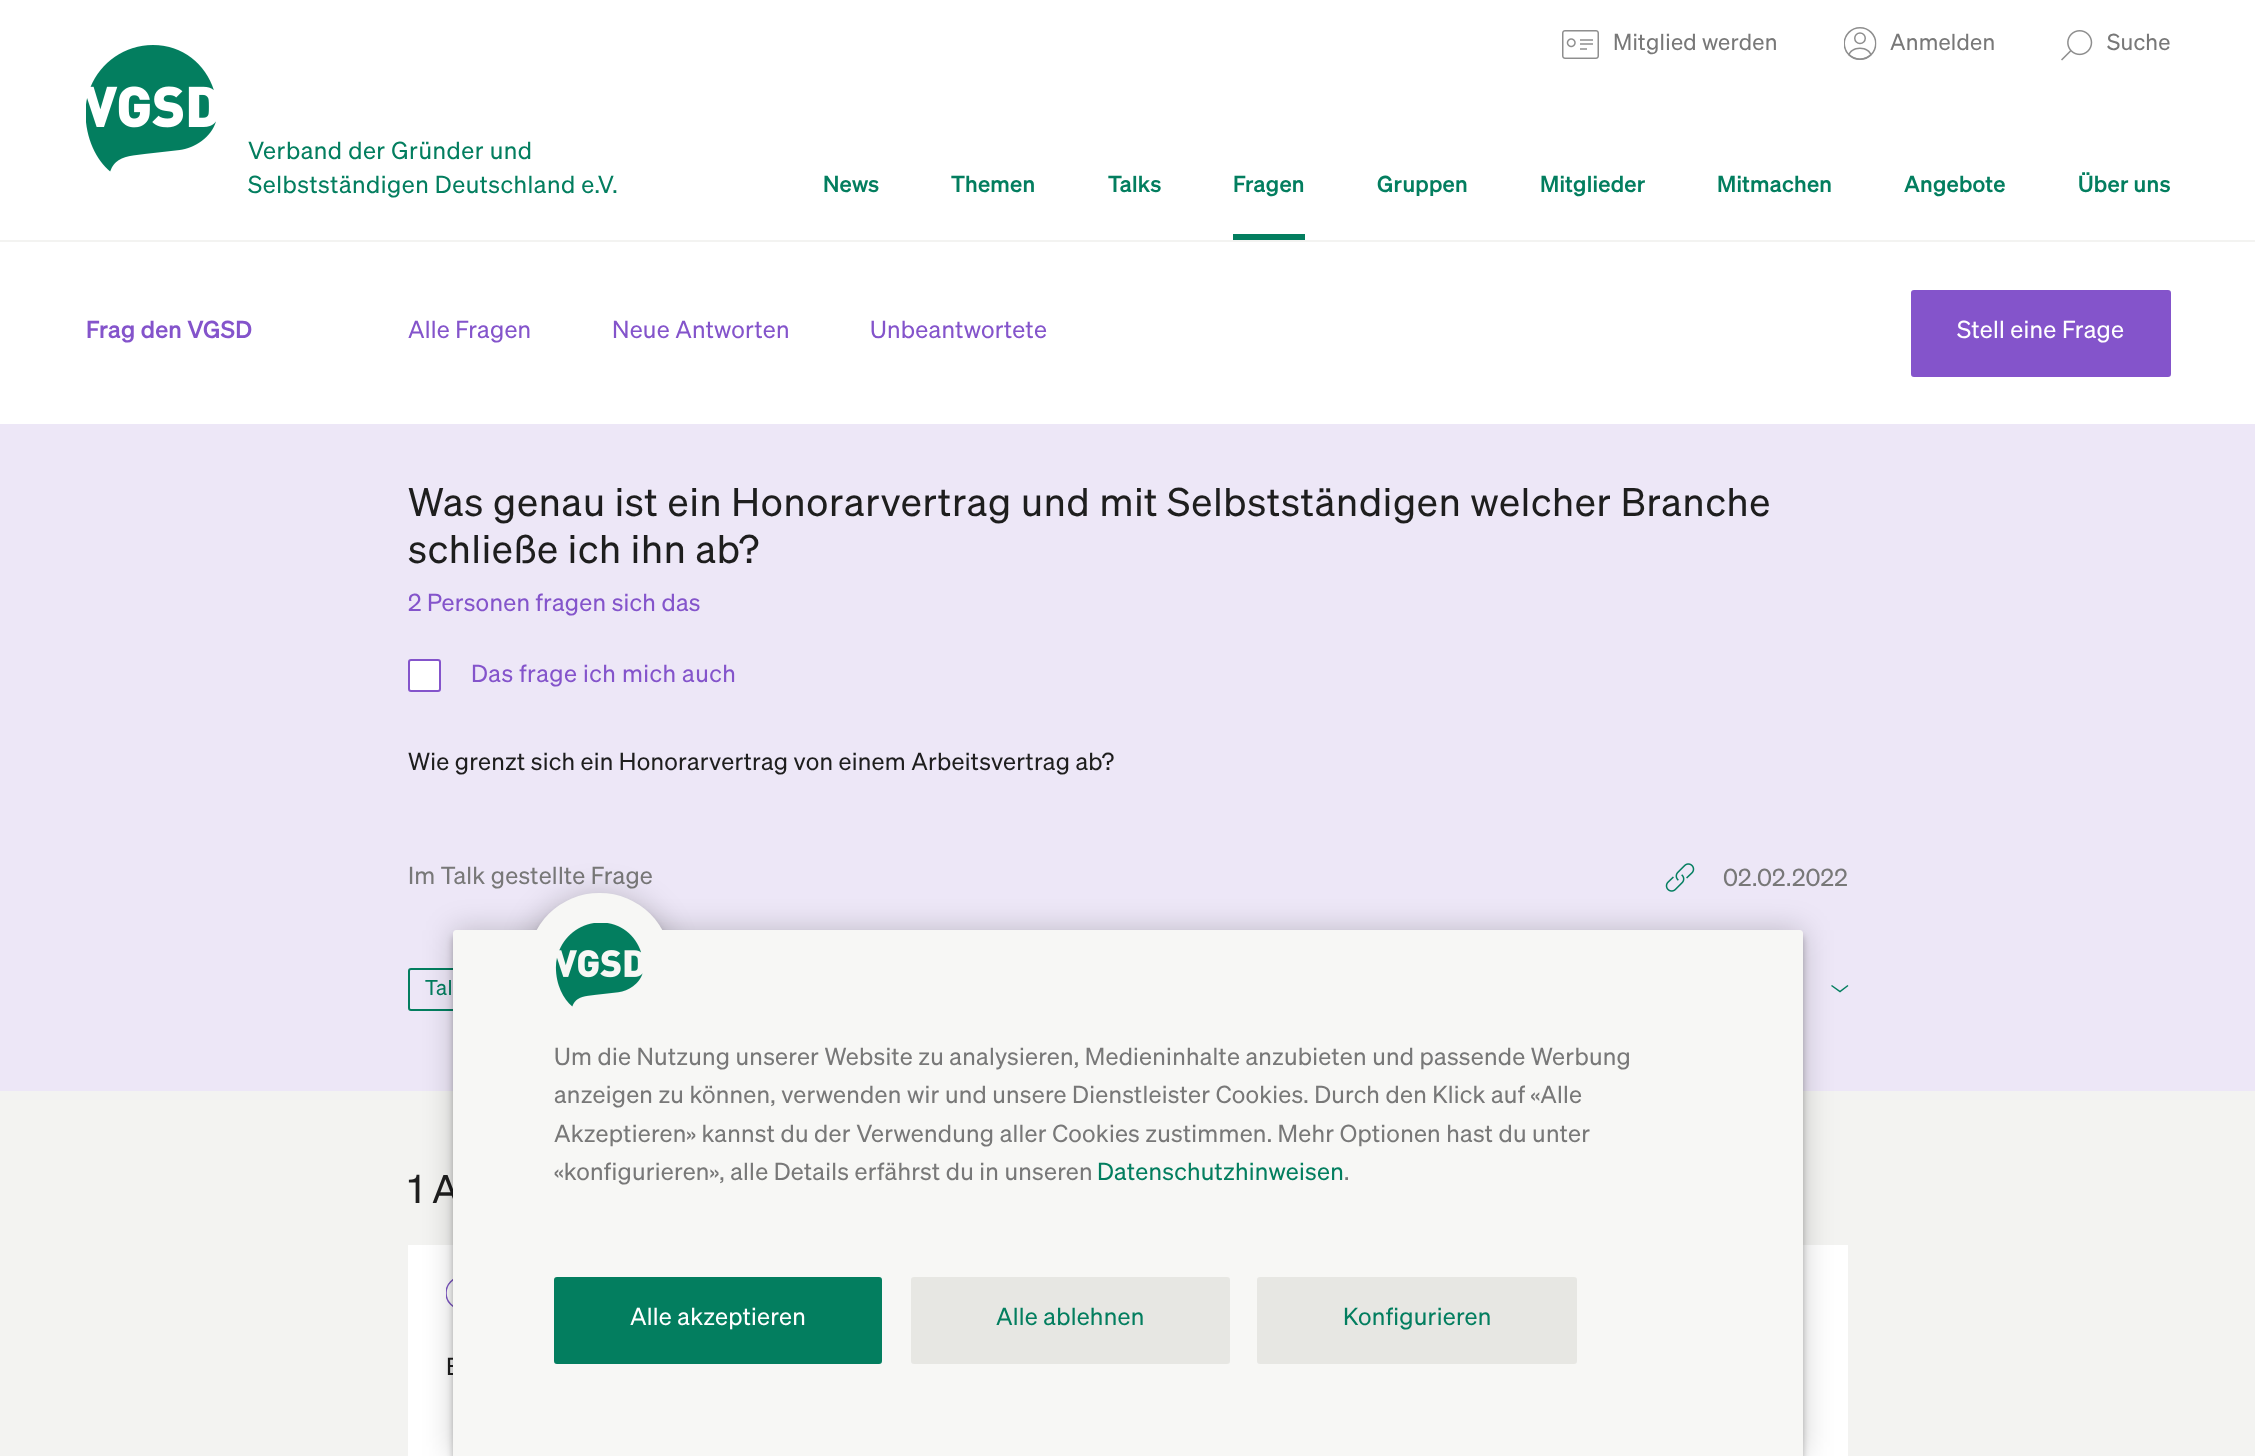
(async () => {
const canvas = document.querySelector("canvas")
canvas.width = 2255
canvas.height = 1456
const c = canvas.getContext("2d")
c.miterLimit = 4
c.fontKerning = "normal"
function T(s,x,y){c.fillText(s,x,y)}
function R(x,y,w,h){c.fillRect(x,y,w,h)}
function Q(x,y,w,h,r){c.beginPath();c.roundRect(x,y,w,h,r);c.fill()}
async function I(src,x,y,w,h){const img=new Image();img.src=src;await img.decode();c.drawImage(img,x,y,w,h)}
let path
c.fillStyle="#fff"
R(0,0,2255,1456)
await I("1.png",86,45,130,127)
c.letterSpacing="0.5px"
c.font="24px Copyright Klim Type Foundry"
c.fillStyle="#037e5f"
T("Verband der Gründer und",248,159)
T("Selbstständigen Deutschland e.V.",248,193)
await I("2.png",1562,30,37,29)
c.letterSpacing="0.25px"
c.font="22.5px Copyright Klim Type Foundry"
c.fillStyle="#787878"
T("Mitglied werden",1613,50)
await I("3.png",1844,27,33,33)
T("Anmelden",1890,50)
await I("4.png",2061,30,32,31)
T("Suche",2107,50)
c.font="500 22.5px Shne"
c.fillStyle="#037e5f"
T("News",823,192)
T("Themen",951,192)
T("Talks",1108,192)
R(1233,234,72,6)
T("Fragen",1233,192)
T("Gruppen",1377,192)
T("Mitglieder",1540,192)
T("Mitmachen",1717,192)
T("Angebote",1904,192)
T("Über uns",2078,192)
c.fillStyle="#f3f3f1"
R(0,240,2255,2)
c.font="500 24px Shne"
c.fillStyle="#8454cb"
T("Frag den VGSD",86,338)
c.font="24px Copyright Klim Type Foundry"
T("Alle Fragen",408,338)
T("Neue Antworten",612,338)
T("Unbeantwortete",870,338)
c.beginPath()
c.roundRect(1912,291,258,85,2)
c.fill()
c.strokeStyle="#8454cb"
c.lineWidth=2
c.stroke()
c.fillStyle="#fff"
T("Stell eine Frage",1957,338)
c.fillStyle="#ede7f7"
R(0,424,2255,667)
c.letterSpacing="0.78px"
c.font="39px Copyright Klim Type Foundry"
c.fillStyle="#1e1e1e"
T("Was genau ist ein Honorarvertrag und mit Selbstständigen welcher Branche",408,516)
T("schließe ich ihn ab?",408,563)
c.letterSpacing="0.25px"
c.font="24px Copyright Klim Type Foundry"
c.fillStyle="#8454cb"
T("2 Personen fragen sich das",408,611)
c.fillStyle="#fff"
c.beginPath()
c.roundRect(409,660,31,31,2)
c.fill()
c.stroke()
c.letterSpacing="0.5px"
c.fillStyle="#8454cb"
T("Das frage ich mich auch",471,682)
c.letterSpacing="0.25px"
c.fillStyle="#1e1e1e"
T("Wie grenzt sich ein Honorarvertrag von einem Arbeitsvertrag ab?",408,770)
c.fillStyle="#787878"
T("Im Talk gestellte Frage",408,884)
await I("5.png",1665,863,30,29)
T("02.02.2022",1723,886)
c.beginPath()
c.roundRect(409,969,132,41,2)
c.strokeStyle="#037e5f"
c.stroke()
c.font="21px Copyright Klim Type Foundry"
c.fillStyle="#037e5f"
T("Tal",425,995)
path = new Path2D("M1848 985.5l-8 6l-8.5-6")
c.lineWidth=1.5
c.stroke(path)
c.fillStyle="#f3f3f1"
R(0,1091,2255,365)
c.letterSpacing="0.5px"
c.font="39px Copyright Klim Type Foundry"
c.fillStyle="#1e1e1e"
T("1 A",408,1203)
c.fillStyle="#fff"
R(408,1245,1440,211)
c.save()
c.beginPath()
c.rect(446,1277,33,33)
c.clip()
c.beginPath()
c.arc(462,1293,16,0,7)
c.strokeStyle="#7d56c4"
c.stroke()
c.restore()
c.letterSpacing="0.25px"
c.font="24px Copyright Klim Type Foundry"
c.fillStyle="#1e1e1e"
T("E",446,1375)
c.fillStyle="#00000033"
c.filter="blur(15px)"
c.beginPath()
c.roundRect(453,930,1350,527,3)
c.fill()
c.filter="none"
c.fillStyle="#00000040"
c.filter="blur(3px)"
c.beginPath()
c.roundRect(453,936,1350,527,3)
c.fill()
c.filter="none"
c.fillStyle="#00000033"
c.filter="blur(15px)"
c.beginPath()
c.roundRect(528,893,143,142,71)
c.fill()
c.filter="none"
c.fillStyle="#00000040"
c.filter="blur(3px)"
c.beginPath()
c.roundRect(528,899,143,142,71)
c.fill()
c.filter="none"
c.fillStyle="#f7f7f5"
Q(528,893,143,142,71)
path = new Path2D("M456 930h1344c1.5 0 3 1.5 3 3v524h-1350v-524c0-1.5 1.5-3 3-3z")
c.fill(path)
await I("6.png",555,923,88,84)
c.fillStyle="#787878"
T("Um die Nutzung unserer Website zu analysieren, Medieninhalte anzubieten und passende Werbung",554,1065)
T("anzeigen zu können, verwenden wir und unsere Dienstleister Cookies. Durch den Klick auf «Alle",554,1103)
T("Akzeptieren» kannst du der Verwendung aller Cookies zustimmen. Mehr Optionen hast du unter",554,1142)
T("«konfigurieren», alle Details erfährst du in unseren",554,1180)
c.fillStyle="#037e5f"
T("Datenschutzhinweisen",1097,1180)
c.fillStyle="#787878"
T(".",1344,1180)
c.fillStyle="#037e5f"
c.beginPath()
c.roundRect(555,1278,326,85,2)
c.fill()
c.lineWidth=2
c.stroke()
c.fillStyle="#fff"
T("Alle akzeptieren",630,1325)
c.fillStyle="#e7e7e3"
c.beginPath()
c.roundRect(912,1278,317,85,2)
c.fill()
c.strokeStyle="#e7e7e3"
c.stroke()
c.fillStyle="#037e5f"
T("Alle ablehnen",996,1325)
c.fillStyle="#e7e7e3"
c.beginPath()
c.roundRect(1258,1278,318,85,2)
c.fill()
c.stroke()
c.fillStyle="#037e5f"
T("Konfigurieren",1343,1325)
})()
